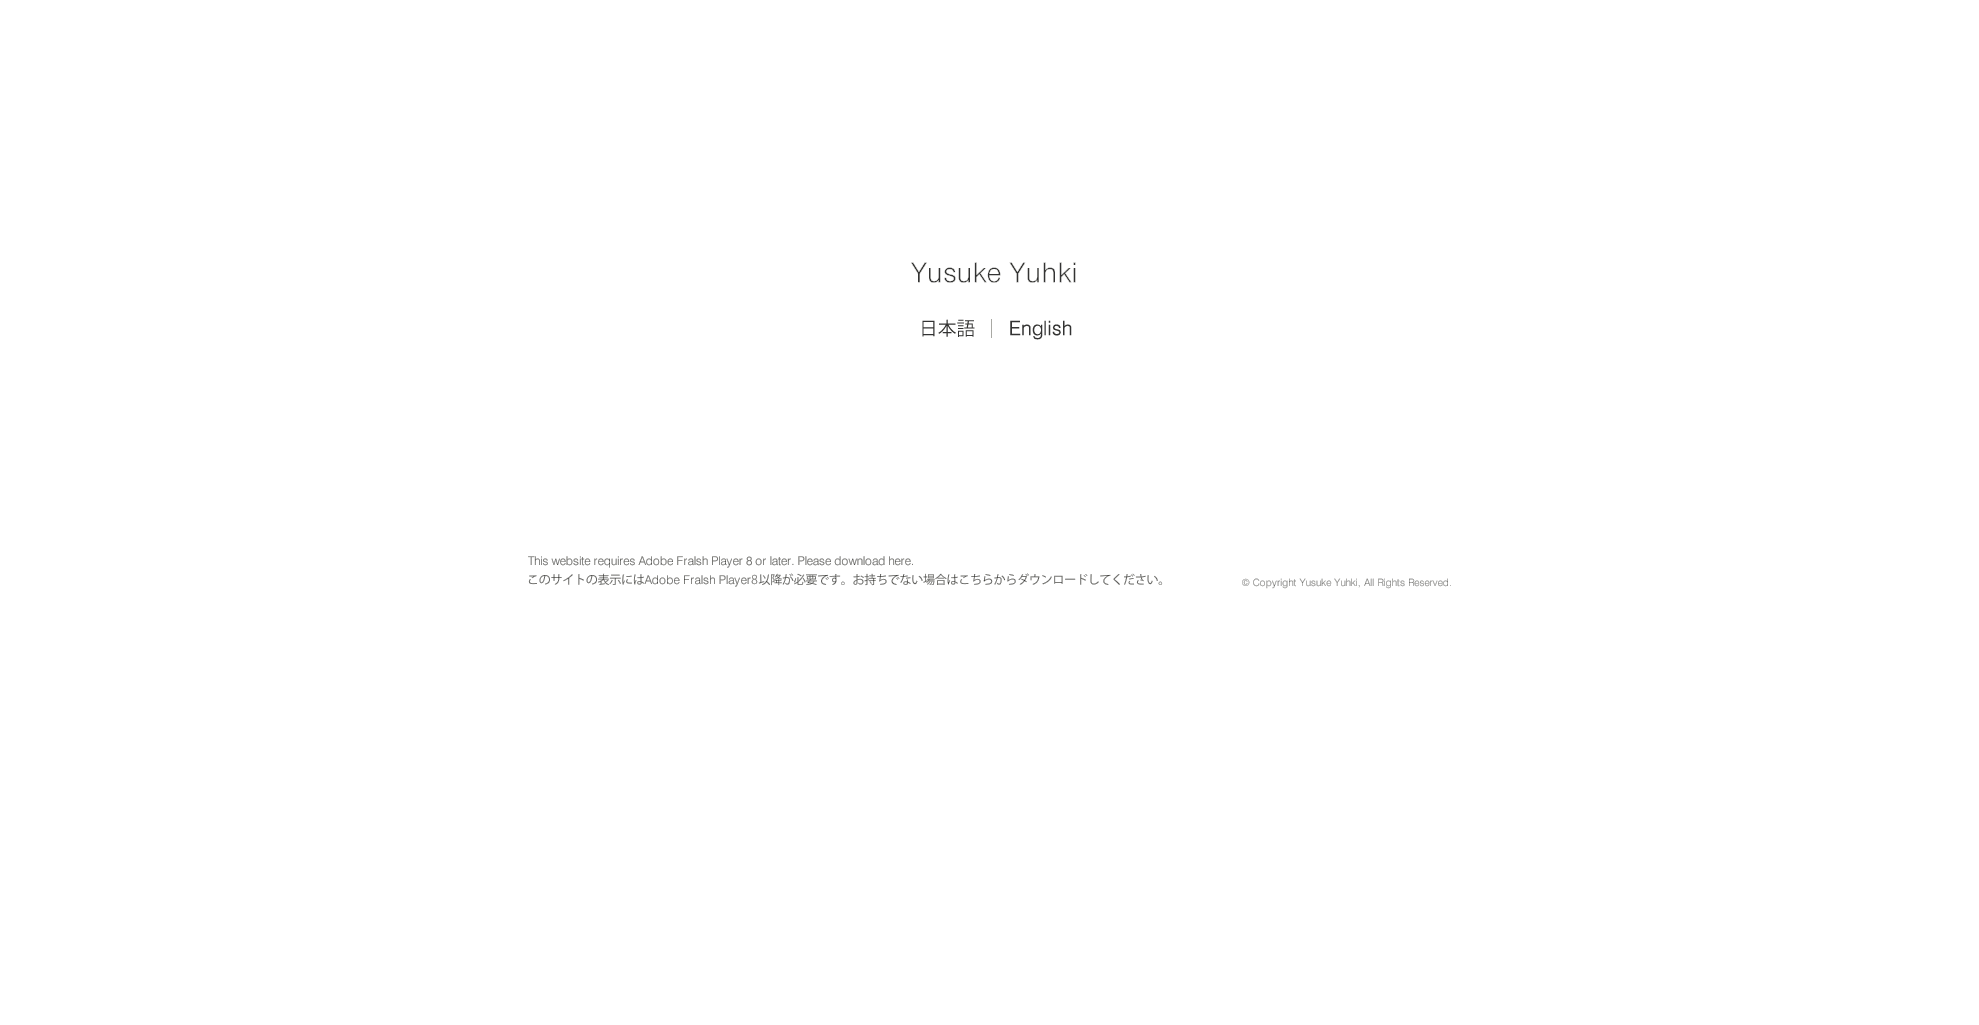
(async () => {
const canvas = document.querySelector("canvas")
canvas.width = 1979
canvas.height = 1025
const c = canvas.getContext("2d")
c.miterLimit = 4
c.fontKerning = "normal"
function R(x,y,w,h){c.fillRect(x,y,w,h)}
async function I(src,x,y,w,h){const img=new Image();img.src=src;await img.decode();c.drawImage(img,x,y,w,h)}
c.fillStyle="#fff"
R(0,0,1979,1025)
await I("1.png",911,262,165,21)
await I("2.png",922,319,53,18)
c.fillStyle="#a9a9a4"
R(991,319,1,19)
await I("3.png",1010,320,62,20)
await I("4.png",528,556,266,12)
await I("5.png",798,556,115,10)
await I("6.png",528,573,430,14)
await I("7.png",960,573,127,12)
await I("8.png",1087,573,364,16)
})()
